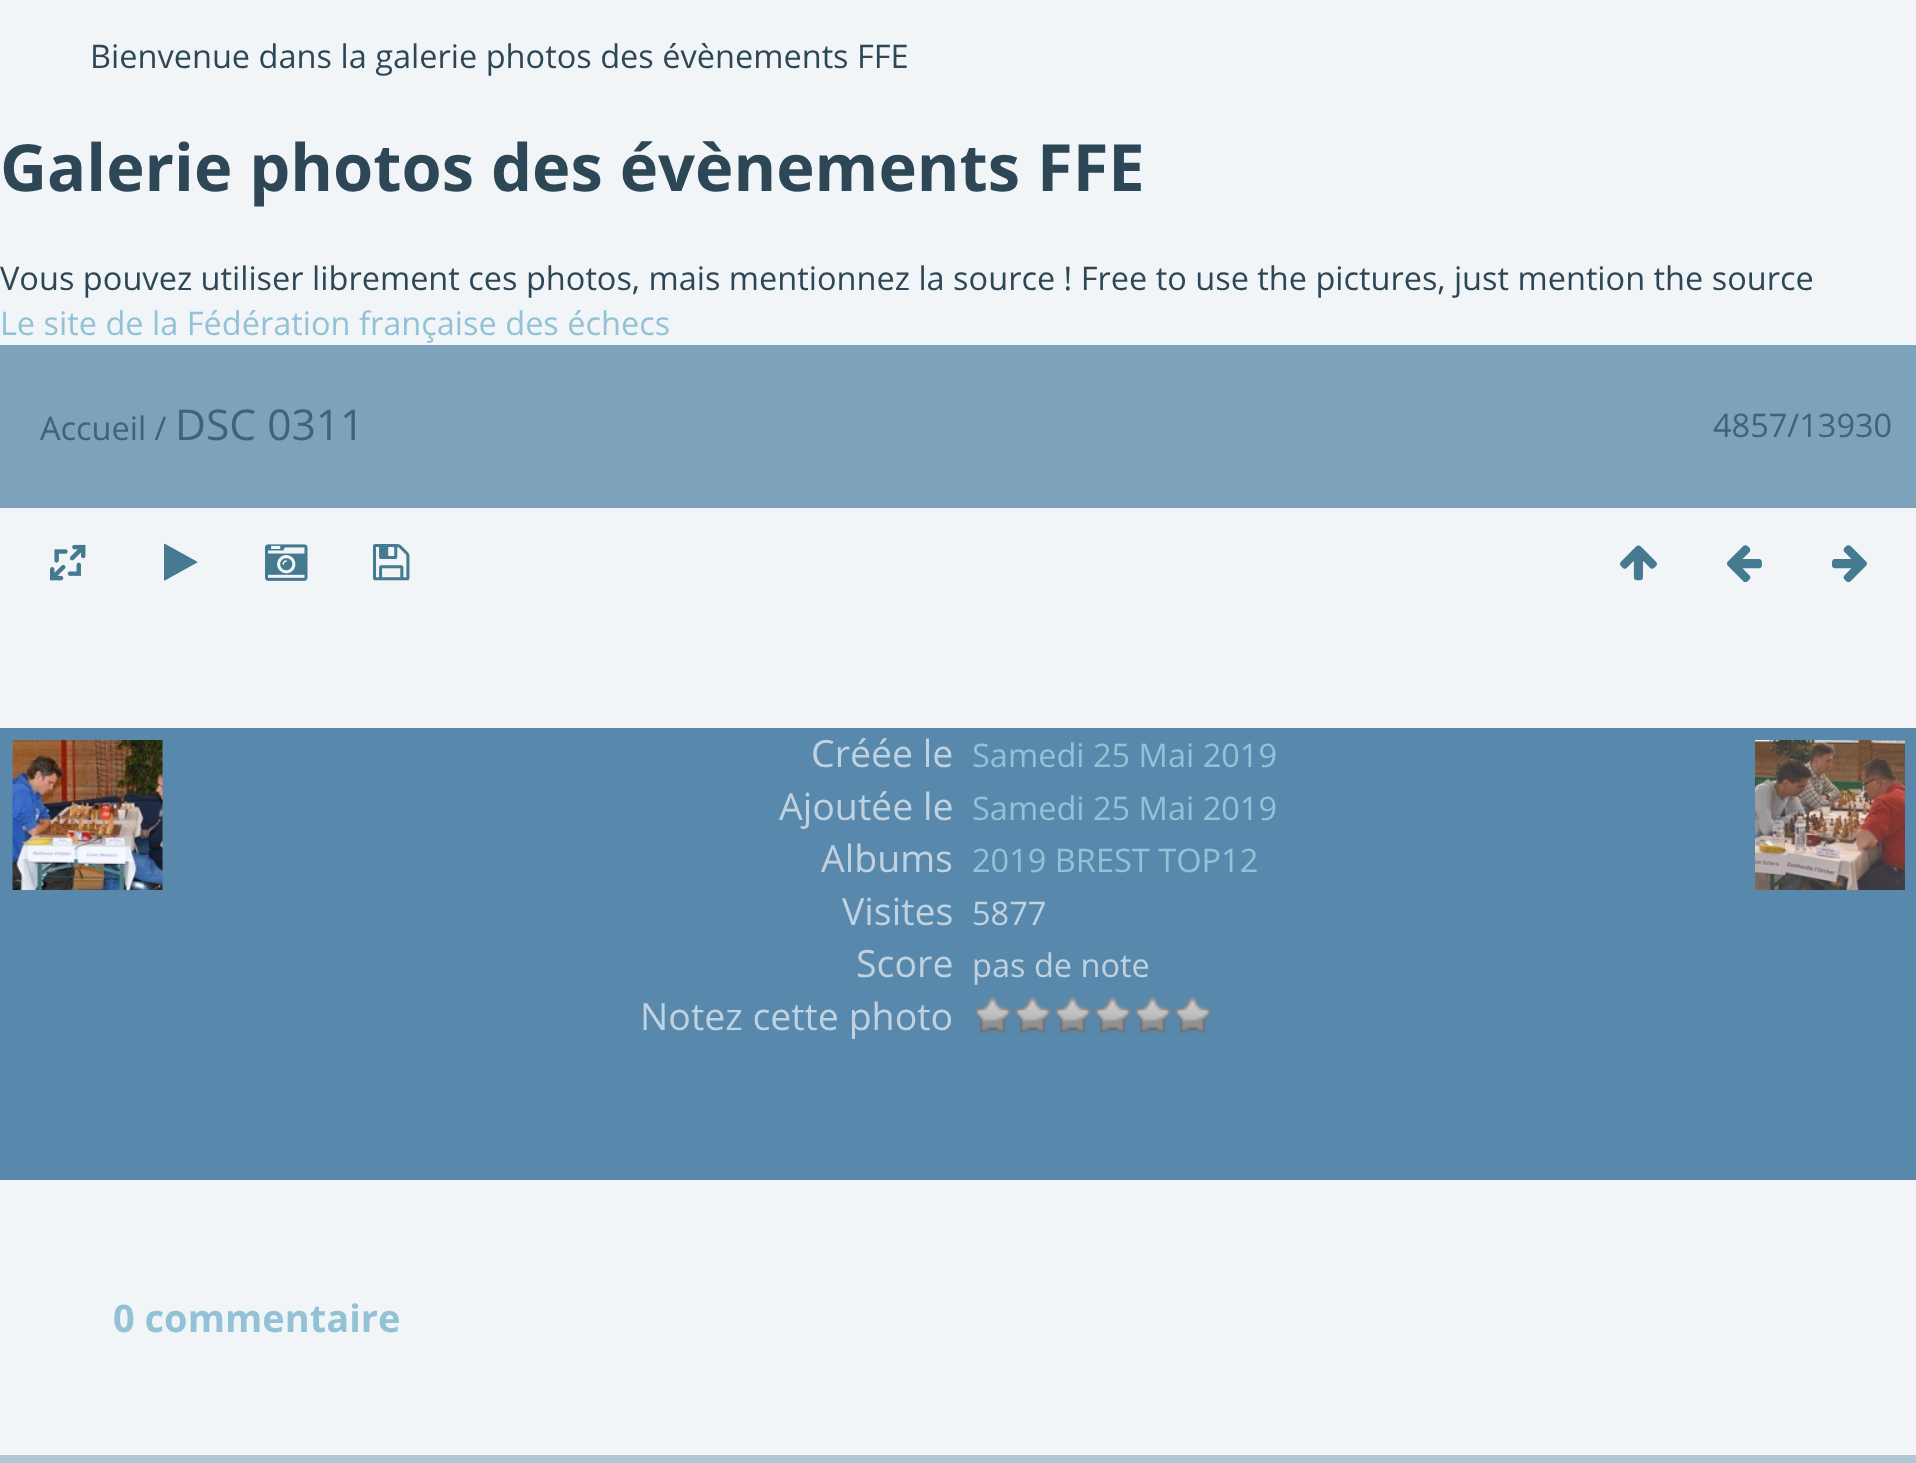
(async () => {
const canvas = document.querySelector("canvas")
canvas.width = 1916
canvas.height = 1463
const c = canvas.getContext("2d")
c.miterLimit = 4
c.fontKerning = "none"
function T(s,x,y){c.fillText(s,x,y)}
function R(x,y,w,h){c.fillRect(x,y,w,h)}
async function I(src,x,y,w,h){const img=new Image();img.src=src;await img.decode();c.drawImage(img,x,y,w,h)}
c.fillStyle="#f1f5f8"
R(0,0,1916,1463)
c.font="32.5px Open Sans"
c.fillStyle="#2e4756"
T("Bienvenue dans la galerie photos des évènements FFE",90,68)
c.font="bold 65px Open Sans"
T("Galerie photos des évènements FFE",0,191)
c.font="32.5px Open Sans"
T("Vous pouvez utiliser librement ces photos, mais mentionnez la source ! Free to use the pictures, just mention the source",0,290)
c.fillStyle="#93c2d6"
T("Le site de la Fédération française des échecs",0,335)
c.fillStyle="#7ca2bc"
R(0,345,1916,163)
c.fillStyle="#3f6379"
T("Accueil /",40,440)
c.font="42.5px Open Sans"
T("DSC 0311",175,440)
c.font="32.5px Open Sans"
T("4857/13930",1713,437)
await I("1.png",50,544,36,37)
c.font="42.5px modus"
c.fillStyle="#457a90"
T("▶",164,577)
await I("2.png",265,544,43,37)
T("💾",373,577)
T("↑",1620,577)
T("←",1727,577)
T("→",1832,577)
c.fillStyle="#5889ad"
R(0,728,1916,452)
c.font="37.5px Open Sans"
c.fillStyle="#c0d2df"
T("Créée le",811,767)
c.font="32.5px Open Sans"
c.fillStyle="#93c2d6"
T("Samedi 25 Mai 2019",972,767)
c.font="37.5px Open Sans"
c.fillStyle="#c0d2df"
T("Ajoutée le",779,820)
c.font="32.5px Open Sans"
c.fillStyle="#93c2d6"
T("Samedi 25 Mai 2019",972,820)
c.font="37.5px Open Sans"
c.fillStyle="#c0d2df"
T("Albums",821,872)
c.font="32.5px Open Sans"
c.fillStyle="#93c2d6"
T("2019 BREST TOP12",972,872)
c.font="37.5px Open Sans"
c.fillStyle="#c0d2df"
T("Visites",842,925)
c.font="32.5px Open Sans"
T("5877",972,925)
c.font="37.5px Open Sans"
T("Score",856,977)
c.font="32.5px Open Sans"
T("pas de note",972,977)
c.font="37.5px Open Sans"
T("Notez cette photo",640,1030)
await I("3.png",972,997,41,37)
await I("4.png",1013,997,40,37)
await I("5.png",1053,997,40,37)
await I("5.png",1093,997,40,37)
await I("5.png",1133,997,40,37)
await I("5.png",1173,997,40,37)
await I("6.png",12,740,151,150)
await I("7.png",1755,740,150,150)
c.font="bold 38px Open Sans"
c.fillStyle="#93c2d6"
T("0 commentaire",113,1332)
c.fillStyle="#afc6d6"
R(0,1455,1916,8)
})()
